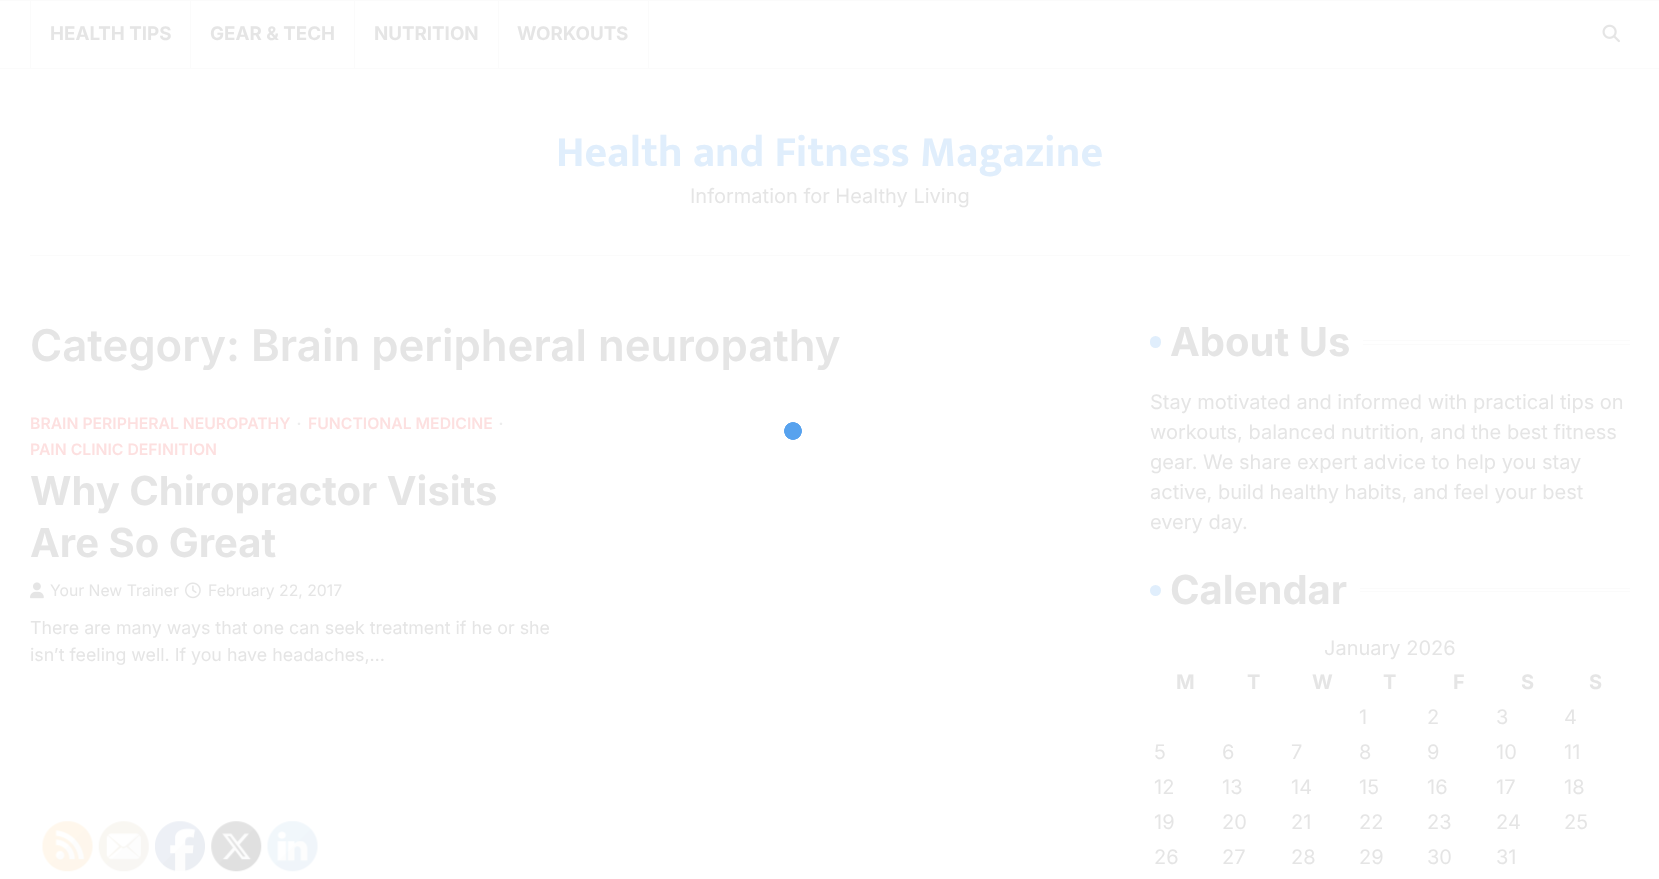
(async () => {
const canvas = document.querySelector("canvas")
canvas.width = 1659
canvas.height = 879
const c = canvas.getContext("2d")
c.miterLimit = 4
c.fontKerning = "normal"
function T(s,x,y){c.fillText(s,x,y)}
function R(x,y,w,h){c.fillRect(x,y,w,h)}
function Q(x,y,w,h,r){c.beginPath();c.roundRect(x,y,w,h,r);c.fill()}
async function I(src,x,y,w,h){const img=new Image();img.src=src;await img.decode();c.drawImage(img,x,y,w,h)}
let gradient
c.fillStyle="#fff"
R(0,0,1659,879)
c.fillStyle="#fbfbfb"
R(0,0,1659,1)
R(0,68,1659,1)
R(30,1,1,67)
c.font="bold 18.75px Inter"
c.fillStyle="#e5e5e5"
T("HEALTH TIPS",50,40)
c.fillStyle="#fbfbfb"
R(190,1,1,67)
c.fillStyle="#e5e5e5"
T("GEAR & TECH",210,40)
c.fillStyle="#fbfbfb"
R(354,1,1,67)
c.fillStyle="#e5e5e5"
T("NUTRITION",374,40)
c.fillStyle="#fbfbfb"
R(648,1,1,67)
R(498,1,1,67)
c.fillStyle="#e5e5e5"
T("WORKOUTS",517,40)
await I("1.png",1602,24,18,19)
c.fillStyle="#fbfbfb"
R(30,255,1600,1)
c.font="bold 43.75px Mukta"
c.fillStyle="#e0eefc"
T("Health and Fitness Magazine",556,166)
c.font="20px Inter"
c.fillStyle="#e5e5e5"
T("Information for Healthy Living",690,203)
c.font="600 43.75px Inter"
T("Category: Brain peripheral neuropathy",30,361)
c.font="600 15.75px Inter"
c.fillStyle="#fde0e0"
T("BRAIN PERIPHERAL NEUROPATHY",30,429)
c.font="bold 15.75px Liberation Serif"
c.fillStyle="#ededed"
T("∙",297,429)
c.font="600 15.75px Inter"
c.fillStyle="#fde0e0"
T("FUNCTIONAL MEDICINE",308,429)
c.font="bold 15.75px Liberation Serif"
c.fillStyle="#ededed"
T("∙",499,429)
c.font="600 15.75px Inter"
c.fillStyle="#fde0e0"
T("PAIN CLINIC DEFINITION",30,455)
c.font="bold 40px Inter"
c.fillStyle="#e5e5e5"
T("Why Chiropractor Visits",30,505)
T("Are So Great",30,557)
await I("2.png",30,582,14,17)
c.font="15.75px Inter"
T("Your New Trainer",50,596)
await I("3.png",185,582,16,17)
T("February 22, 2017",208,596)
c.font="17.8px Inter"
T("There are many ways that one can seek treatment if he or she",30,634)
T("isn’t feeling well. If you have headaches,…",30,661)
c.fillStyle="#e0eefc"
Q(1150,336,11,12,5.5)
c.font="bold 40px Inter"
c.fillStyle="#e5e5e5"
T("About Us",1170,356)
c.fillStyle="#fbfbfb"
R(1363,340,267,1)
R(1363,344,267,1)
c.font="20px Inter"
c.fillStyle="#e5e5e5"
T("Stay motivated and informed with practical tips on",1150,409)
T("workouts, balanced nutrition, and the best fitness",1150,439)
T("gear. We share expert advice to help you stay",1150,469)
T("active, build healthy habits, and feel your best",1150,499)
T("every day.",1150,529)
c.fillStyle="#e0eefc"
c.beginPath()
c.arc(1155.5,590.5,5.5,0,7)
c.fill()
c.font="bold 40px Inter"
c.fillStyle="#e5e5e5"
T("Calendar",1170,604)
c.fillStyle="#fbfbfb"
R(1360,588,270,1)
R(1360,591,270,1)
c.font="20px Inter"
c.fillStyle="#e5e5e5"
T("January 2026",1324,655)
c.font="bold 20px Inter"
T("M",1176,689)
T("T",1247,689)
T("W",1312,689)
T("T",1383,689)
T("F",1453,689)
T("S",1521,689)
T("S",1589,689)
c.font="20px Inter"
T("1",1359,724)
T("2",1427,724)
T("3",1496,724)
T("4",1564,724)
T("5",1154,759)
T("6",1222,759)
T("7",1291,759)
T("8",1359,759)
T("9",1427,759)
T("10",1496,759)
T("11",1564,759)
T("12",1154,794)
T("13",1222,794)
T("14",1291,794)
T("15",1359,794)
T("16",1427,794)
T("17",1496,794)
T("18",1564,794)
T("19",1154,829)
T("20",1222,829)
T("21",1291,829)
T("22",1359,829)
T("23",1427,829)
T("24",1496,829)
T("25",1564,829)
T("26",1154,864)
T("27",1222,864)
T("28",1291,864)
T("29",1359,864)
T("30",1427,864)
T("31",1496,864)
gradient = c.createRadialGradient(793,431,0,793,431,9)
gradient.addColorStop(.9,"#57a2ee")
gradient.addColorStop(1,"#fff")
c.fillStyle = gradient
R(784,422,18,18)
gradient = c.createRadialGradient(793,431,0,793,431,9)
gradient.addColorStop(.9,"#57a2ee")
gradient.addColorStop(1,"#57a2ee00")
c.fillStyle = gradient
R(784,422,18,18)
R(784,422,18,18)
R(784,422,18,18)
await I("4.png",42,821,51,51)
await I("5.png",98,821,51,51)
await I("6.png",155,821,50,51)
await I("7.png",211,821,51,51)
await I("8.png",267,821,51,51)
})()
